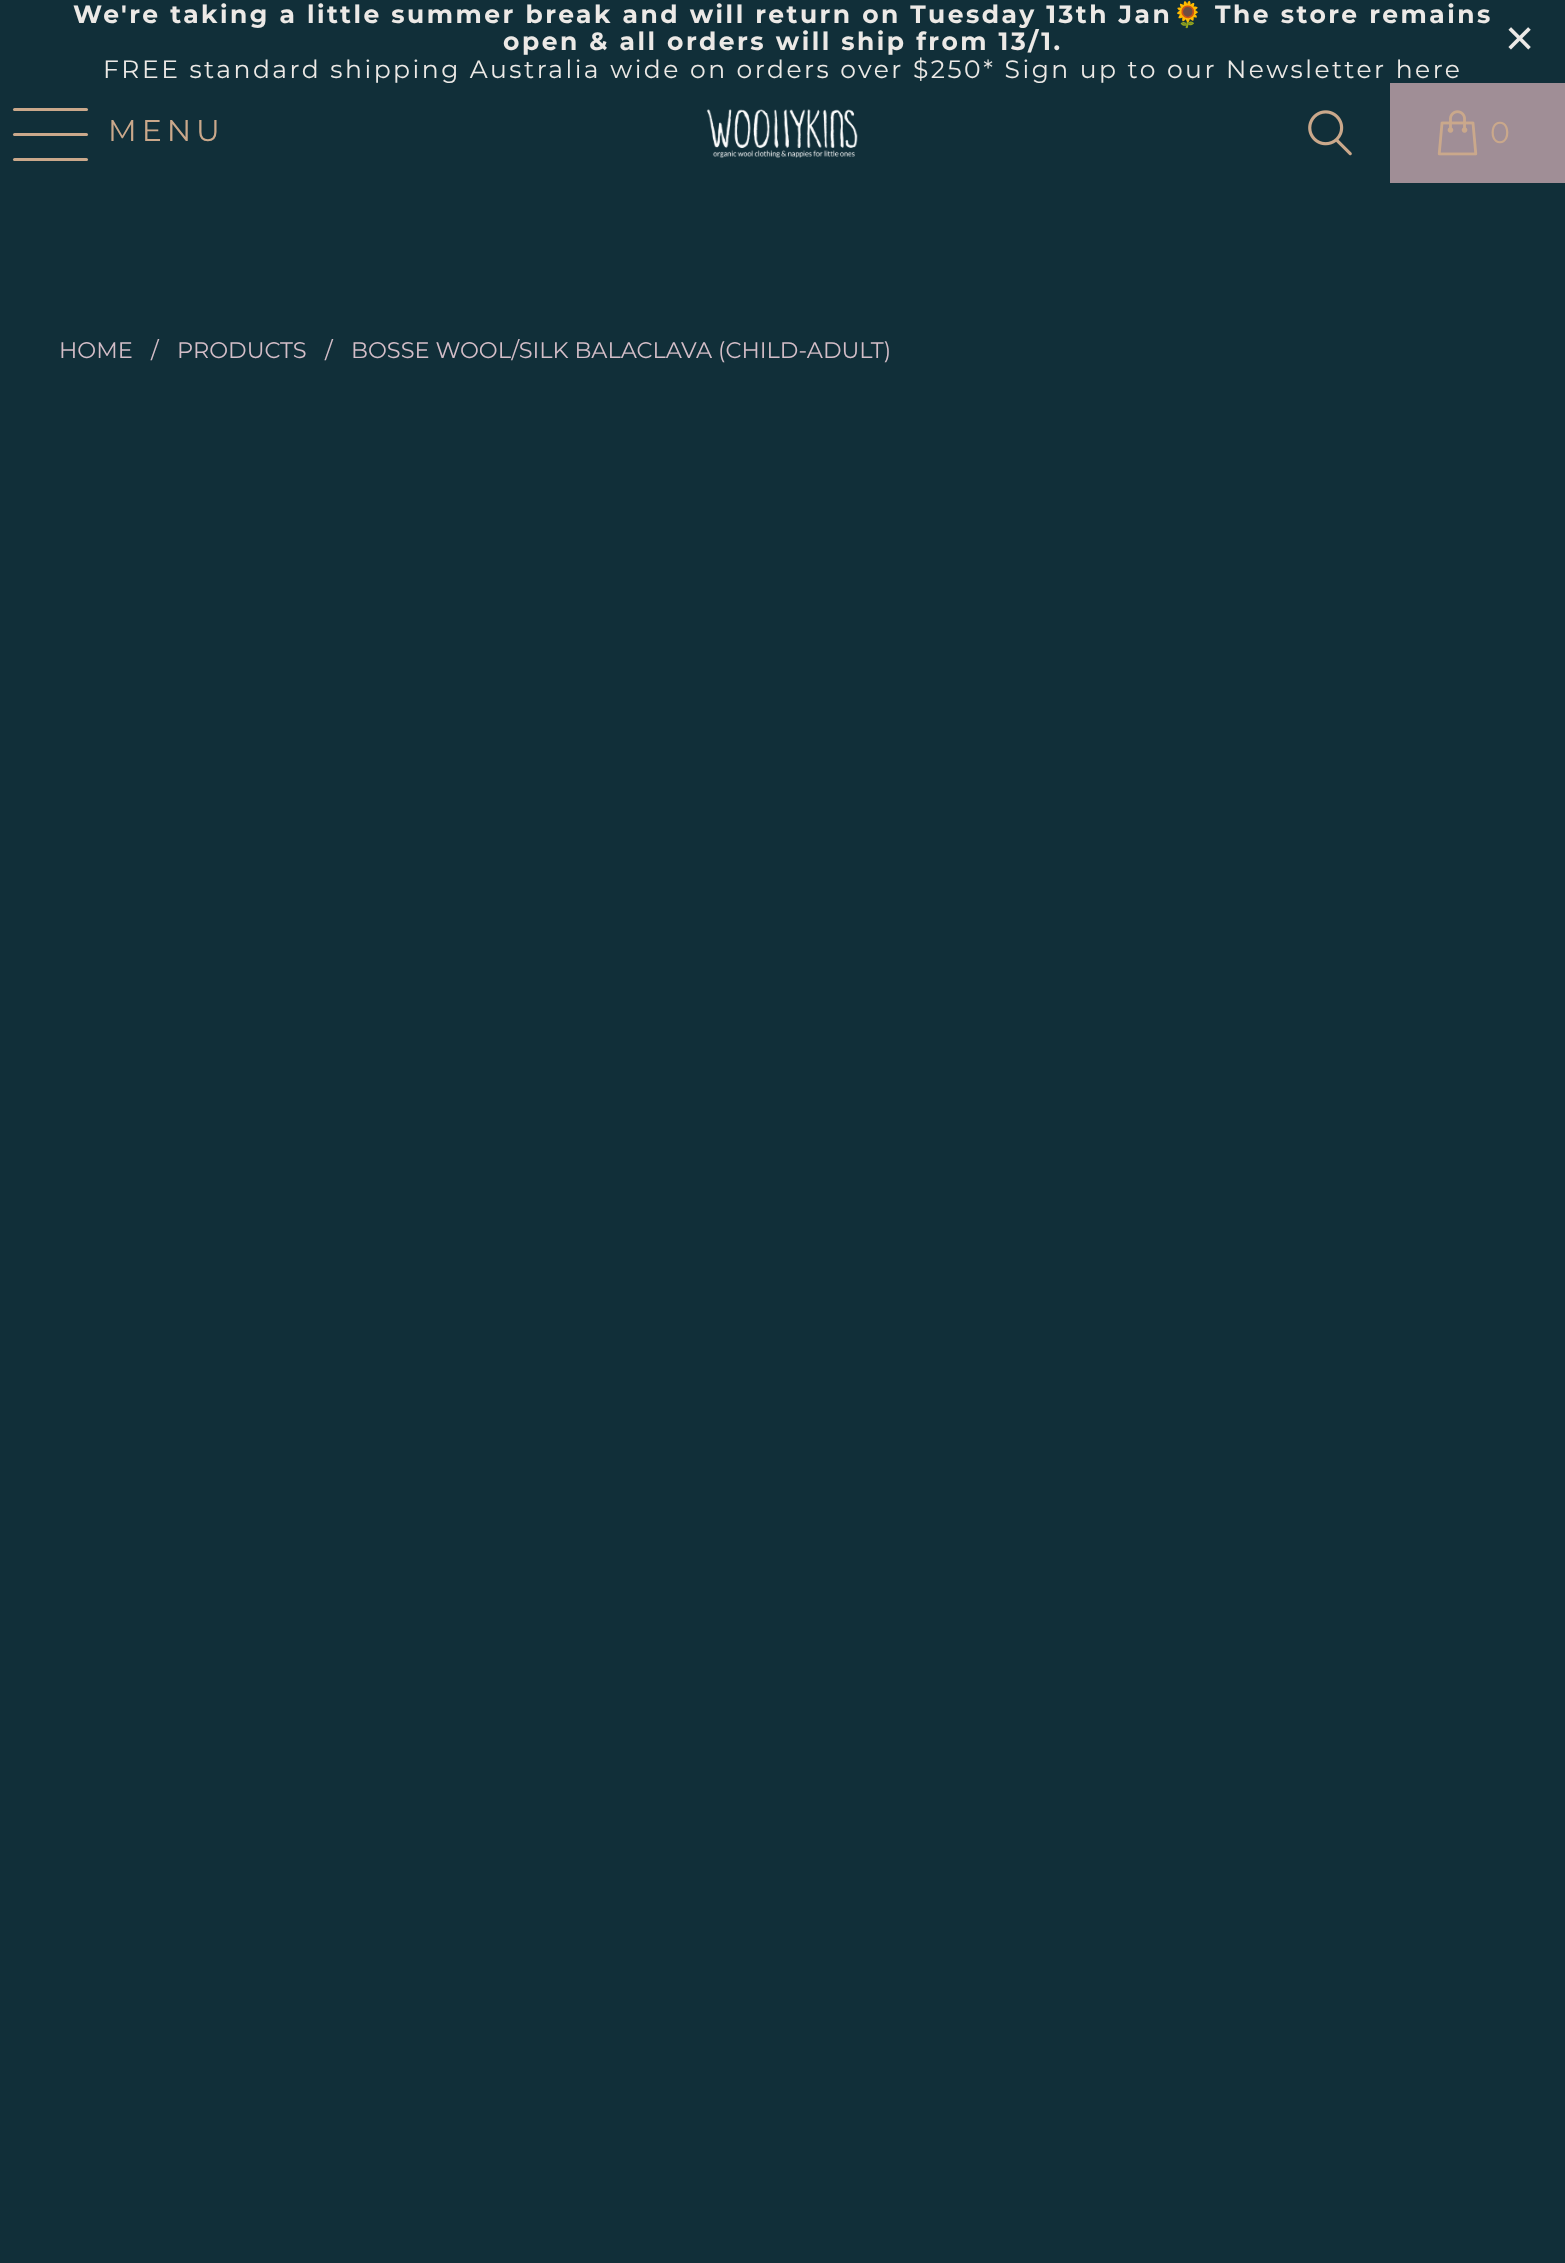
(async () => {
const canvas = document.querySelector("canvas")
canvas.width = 1565
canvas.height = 2263
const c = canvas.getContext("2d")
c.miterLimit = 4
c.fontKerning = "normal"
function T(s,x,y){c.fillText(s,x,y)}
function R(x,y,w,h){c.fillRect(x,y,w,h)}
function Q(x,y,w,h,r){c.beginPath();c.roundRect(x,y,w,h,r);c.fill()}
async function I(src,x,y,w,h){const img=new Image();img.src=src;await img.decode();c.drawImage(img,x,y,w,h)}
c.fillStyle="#112f39"
R(0,0,1565,2263)
c.letterSpacing="2.5px"
c.font="bold 25px Montserrat"
c.fillStyle="#ece9e6"
T("We're taking a little summer break and will return on Tuesday 13th Jan",73,23)
c.font="25px Noto Color Emoji"
T("🌻",1172,23)
c.font="bold 25px Montserrat"
T("The store remains",1215,23)
T("open & all orders will ship from 13/1.",503,50)
c.font="25px Montserrat"
T("FREE standard shipping Australia wide on orders over $250* Sign up to our Newsletter here",103,78)
c.font="50px Liberation Sans"
T("×",1505,55)
c.fillStyle="#caa88b"
Q(13,108,75,3,1.5)
Q(13,133,75,3,1.5)
Q(13,158,75,3,1.5)
c.letterSpacing="5px"
c.font="30px Montserrat"
T("MENU",108,141)
await I("1.png",706,109,152,49)
await I("2.png",1308,110,44,46)
c.fillStyle="#a08e96"
R(1390,83,175,100)
await I("3.png",1437,110,41,46)
c.fillStyle="#caa88b"
T("0",1490,143)
c.letterSpacing="0px"
c.font="22.5px Montserrat"
c.fillStyle="#d4bec8"
T("HOME",59,358)
T("/",151,358)
T("PRODUCTS",177,358)
T("/",325,358)
T("BOSSE WOOL/SILK BALACLAVA (CHILD-ADULT)",351,358)
})()
